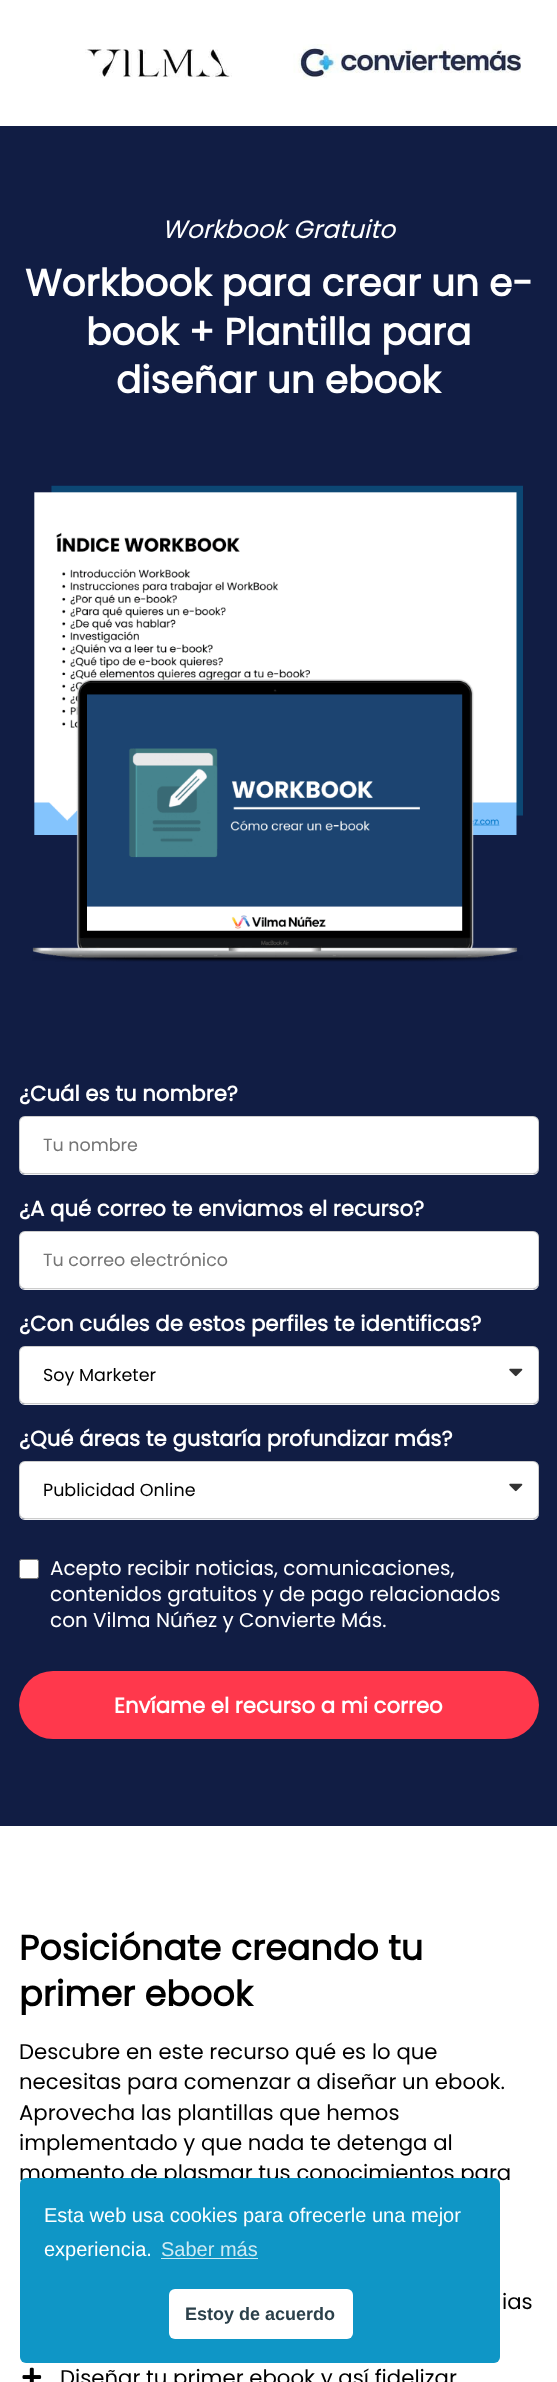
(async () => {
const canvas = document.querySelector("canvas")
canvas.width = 557
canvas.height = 2382
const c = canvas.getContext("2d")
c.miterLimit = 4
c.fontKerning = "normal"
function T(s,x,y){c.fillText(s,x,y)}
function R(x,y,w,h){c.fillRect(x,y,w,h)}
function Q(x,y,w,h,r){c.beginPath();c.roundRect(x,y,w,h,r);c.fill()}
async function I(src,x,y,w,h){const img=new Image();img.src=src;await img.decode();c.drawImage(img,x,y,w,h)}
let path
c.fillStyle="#fff"
R(0,0,557,2382)
await I("1.png",85,44,436,36)
c.fillStyle="#111d44"
R(0,126,557,1700)
c.font="italic 25px Poppins"
c.fillStyle="#fff"
T("Workbook Gratuito",162,238)
c.font="bold 37.5px Poppins"
T("Workbook para crear un e-",25,296)
T("book + Plantilla para",86,345)
T("diseñar un ebook",116,393)
await I("2.png",32,485,491,477)
c.font="bold 21.25px Poppins"
T("¿Cuál es tu nombre?",19,1101)
c.fillStyle="#f3f4f6"
path = new Path2D("M19 1169c0 3 3 6 6 6h508c3 0 6-3 6-6v-47v46c0 3-3 6-7 6h-507c-3 0-5-2-6-5z")
c.fill(path)
c.fillStyle="#fff"
Q(19,1116,520,58,6)
c.beginPath()
c.roundRect(19.5,1116.5,519,57,5.5)
c.strokeStyle="#00000033"
c.stroke()
c.font="17.5px Poppins"
c.fillStyle="#757575"
T("Tu nombre",43,1151)
c.font="bold 21.25px Poppins"
c.fillStyle="#fff"
T("¿A qué correo te enviamos el recurso?",19,1216)
c.fillStyle="#f3f4f6"
path = new Path2D("M19 1284c0 3 3 6 6 6h508c3 0 6-3 6-6v-47v45c0 4-3 7-7 7h-507c-3 0-5-2-6-5z")
c.fill(path)
c.fillStyle="#fff"
Q(19,1231,520,58,6)
c.beginPath()
c.roundRect(19.5,1231.5,519,57,5.5)
c.stroke()
c.font="17.5px Poppins"
c.fillStyle="#757575"
T("Tu correo electrónico",43,1266)
c.font="bold 21.25px Poppins"
c.fillStyle="#fff"
T("¿Con cuáles de estos perfiles te identificas?",19,1331)
c.fillStyle="#f3f4f6"
path = new Path2D("M19 1399c0 3 3 6 6 6h508c3 0 6-3 6-6v-47v46c0 3-3 6-7 6h-507c-3 0-5-2-6-5z")
c.fill(path)
c.fillStyle="#fff"
Q(19,1346,520,58,6)
c.beginPath()
c.roundRect(19.5,1346.5,519,57,5.5)
c.stroke()
c.font="17.5px Poppins"
c.fillStyle="#000"
T("Soy Marketer",43,1381)
await I("3.png",509,1368,14,9)
c.font="bold 21.25px Poppins"
c.fillStyle="#fff"
T("¿Qué áreas te gustaría profundizar más?",19,1446)
c.fillStyle="#f3f4f6"
path = new Path2D("M19 1514c0 3 3 6 6 6h508c3 0 6-3 6-6v-47v45c0 4-3 7-7 7h-507c-3 0-5-2-6-5z")
c.fill(path)
c.fillStyle="#fff"
Q(19,1461,520,58,6)
c.beginPath()
c.roundRect(19.5,1461.5,519,57,5.5)
c.stroke()
c.font="17.5px Poppins"
c.fillStyle="#000"
T("Publicidad Online",43,1496)
await I("3.png",509,1483,14,9)
c.fillStyle="#fff"
c.beginPath()
c.roundRect(19.5,1559.5,19,19,2)
c.fill()
c.strokeStyle="#767676"
c.stroke()
c.font="20px Poppins"
T("Acepto recibir noticias, comunicaciones,",50,1575)
T("contenidos gratuitos y de pago relacionados",50,1601)
T("con Vilma Núñez y Convierte Más.",50,1627)
c.fillStyle="#ff384c"
Q(19,1671,520,68,34)
c.font="bold 21.25px Poppins"
c.fillStyle="#fff"
T("Envíame el recurso a mi correo",114,1713)
c.font="bold 35px Poppins"
c.fillStyle="#000"
T("Posiciónate creando tu",19,1960)
T("primer ebook",19,2006)
c.font="21.25px Poppins"
T("Descubre en este recurso qué es lo que",19,2059)
T("necesitas para comenzar a diseñar un ebook.",19,2089)
T("Aprovecha las plantillas que hemos",19,2120)
T("implementado y que nada te detenga al",19,2150)
T("momento de plasmar tus conocimientos para",19,2180)
T("ias",502,2309)
await I("4.png",22,2367,20,15)
T("Diseñar tu primer ebook y así fidelizar",60,2385)
c.fillStyle="#0f96c6"
Q(20,2178,480,185,6)
c.font="20px Liberation Sans"
c.fillStyle="#fff"
T("Esta web usa cookies para ofrecerle una mejor",44,2222)
T("experiencia.",44,2256)
c.fillStyle="#cfeaf4"
T("Saber más",161,2256)
R(161,2258,97,1)
c.fillStyle="#fff"
Q(169,2289,184,50,6)
c.font="bold 18px Liberation Sans"
c.fillStyle="#2b404a"
T("Estoy de acuerdo",185,2320)
})()
